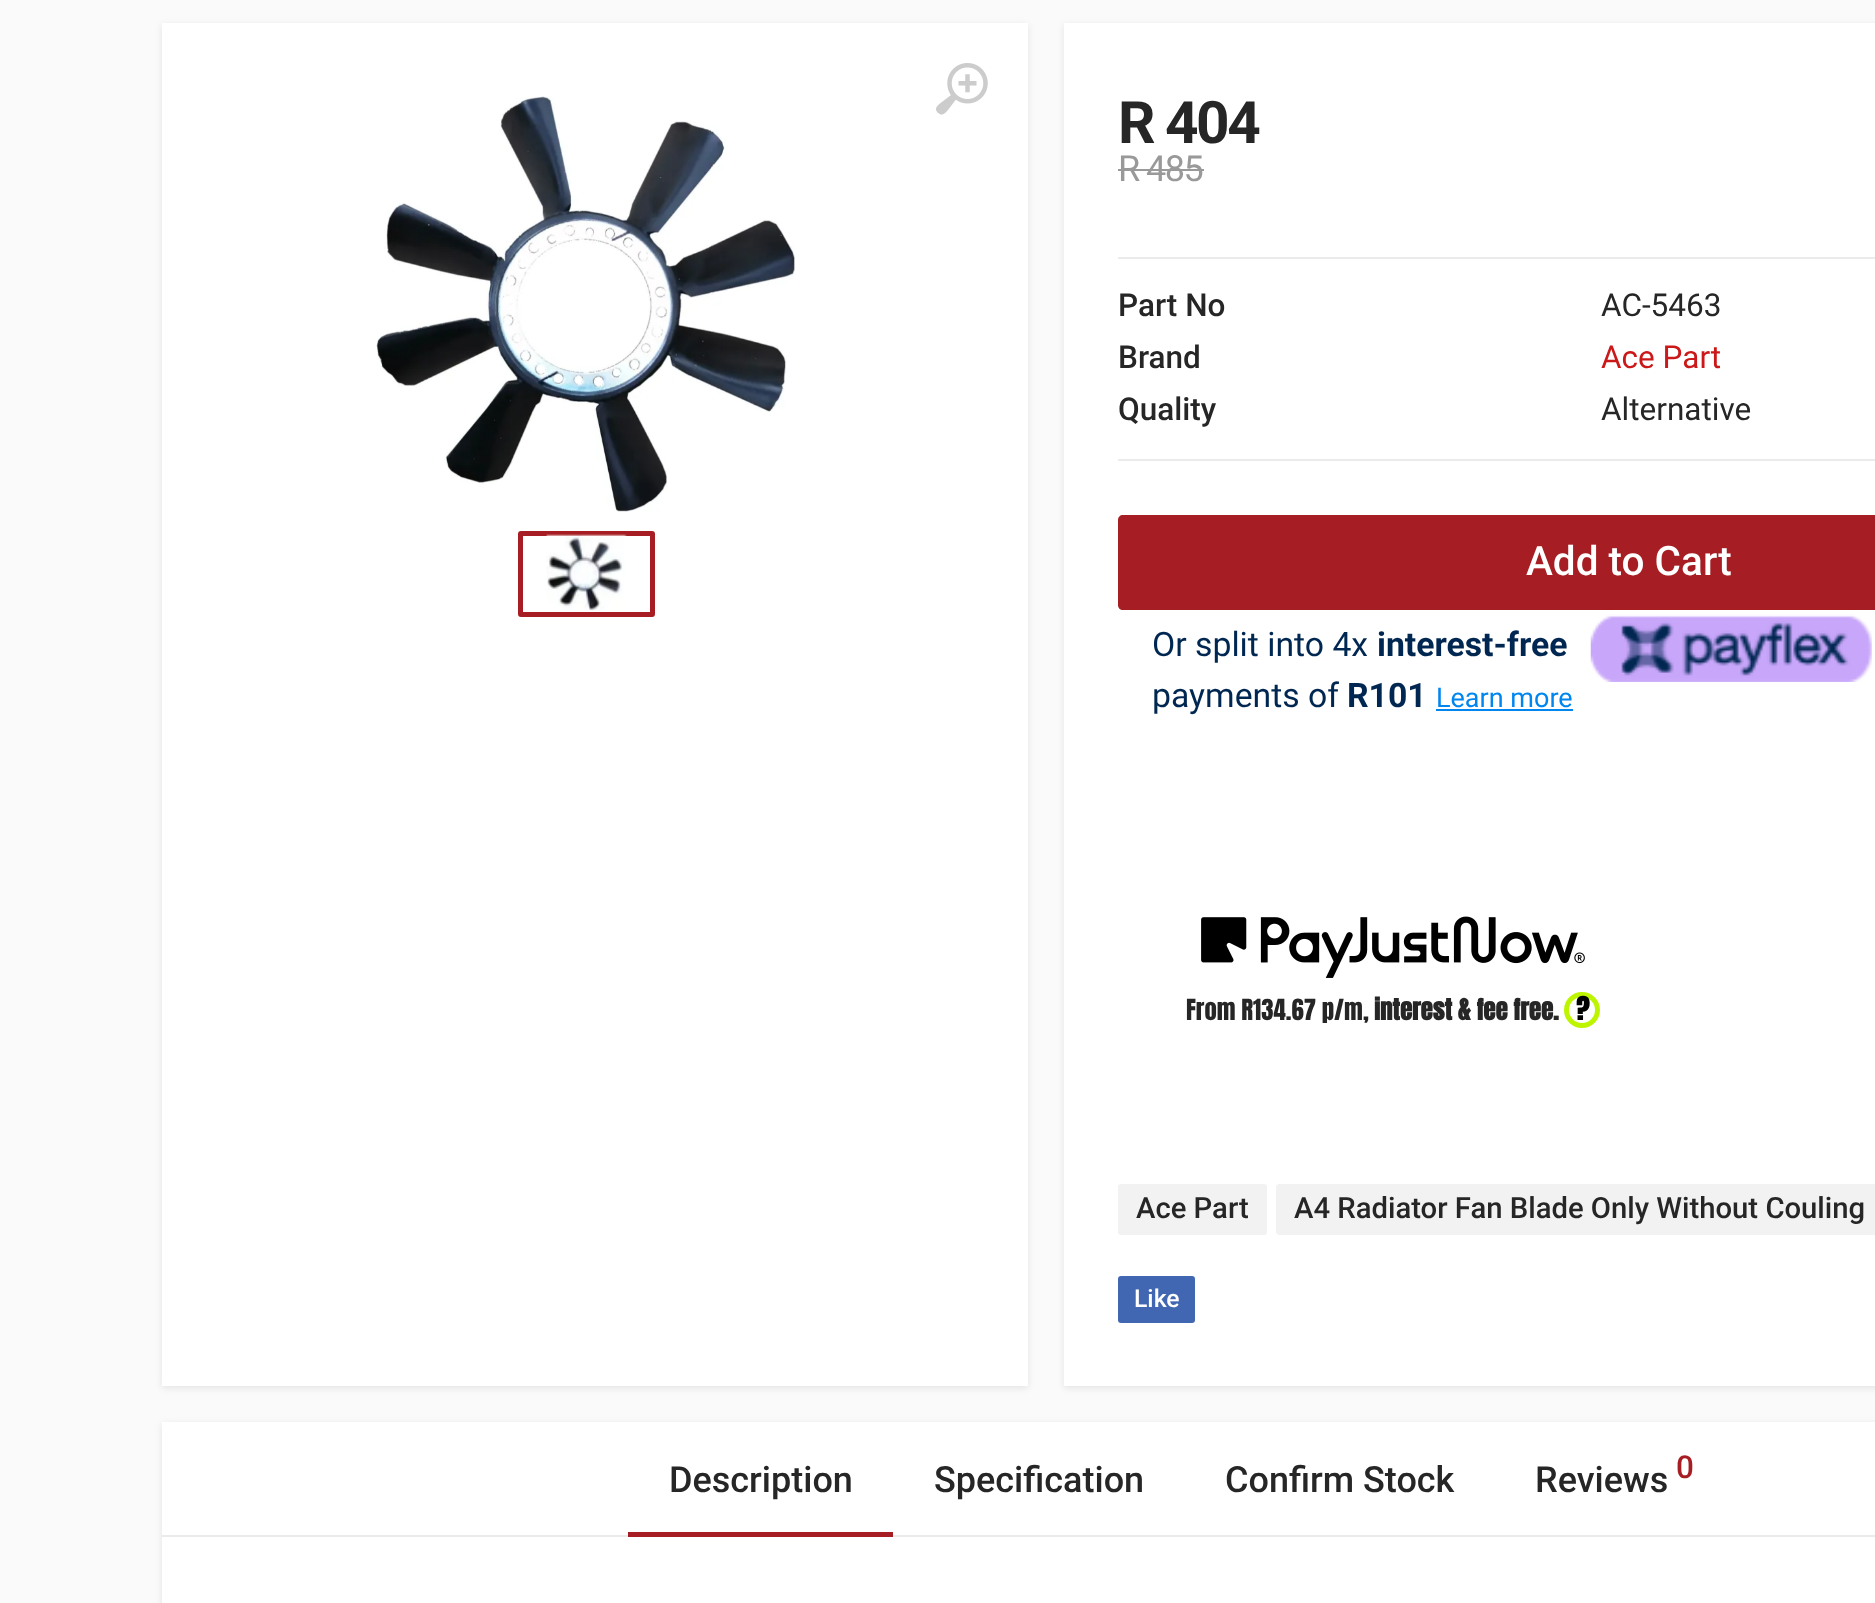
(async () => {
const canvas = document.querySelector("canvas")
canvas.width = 1875
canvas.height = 1603
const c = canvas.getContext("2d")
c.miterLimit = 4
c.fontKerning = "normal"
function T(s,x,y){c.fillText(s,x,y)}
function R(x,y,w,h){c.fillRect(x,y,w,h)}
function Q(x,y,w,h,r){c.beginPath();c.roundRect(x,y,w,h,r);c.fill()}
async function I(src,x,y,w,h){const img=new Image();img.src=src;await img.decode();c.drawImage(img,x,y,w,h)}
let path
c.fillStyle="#fafafa"
R(0,0,1875,1603)
c.fillStyle="#00000017"
c.filter="blur(3.5px)"
c.beginPath()
c.rect(162,25,866,1363)
c.fill()
c.filter="none"
c.fillStyle="#fff"
R(162,23,866,1363)
await I("1.png",936,63,52,52)
await I("2.png",376,96,419,416)
c.fillStyle="#a61e23"
path = new Path2D("M521 531c-2 0-3 1-3 3v80c0 2 1 3 3 3h131c2 0 3-1 3-3v-80c0-2-1-3-3-3zm2 5v76h127v-76z")
c.fill(path,"evenodd")
await I("3.png",546,534,81,77)
c.fillStyle="#00000017"
c.filter="blur(3.5px)"
c.beginPath()
c.rect(1064,25,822,1363)
c.fill()
c.filter="none"
c.fillStyle="#fff"
R(1064,23,811,1363)
c.letterSpacing="-2.5px"
c.font="bold 58.5px Roboto"
c.fillStyle="#262626"
T("R 404",1118,143)
c.letterSpacing="-1.5px"
c.font="36px Roboto"
c.fillStyle="#999"
T("R 485",1118,181)
R(1118,169,86,2)
c.fillStyle="#ebebeb"
R(1118,257,757,2)
R(1118,459,757,2)
c.letterSpacing="0px"
c.font="500 31.5px Roboto"
c.fillStyle="#262626"
T("Part No",1118,316)
c.font="31.5px Roboto"
T("AC-5463",1601,316)
c.font="500 31.5px Roboto"
T("Brand",1118,368)
c.font="31.5px Roboto"
c.fillStyle="#cb1818"
T("Ace Part",1601,368)
c.font="500 31.5px Roboto"
c.fillStyle="#262626"
T("Quality",1118,420)
c.font="31.5px Roboto"
T("Alternative",1601,420)
c.fillStyle="#a61e23"
path = new Path2D("M1123 515h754v95h-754c-3 0-5-2-5-5v-85c0-3 2-5 5-5z")
c.fill(path)
c.font="500 40.5px Roboto"
c.fillStyle="#fff"
T("Add to Cart",1526,575)
c.font="33.75px Roboto"
c.fillStyle="#002751"
T("Or split into 4x",1152,656)
c.font="bold 33.75px Roboto"
T("interest-free",1377,656)
c.font="33.75px Roboto"
T("payments of",1152,707)
c.font="bold 33.75px Roboto"
T("R101",1347,707)
c.font="27px Roboto"
c.fillStyle="#0086ef"
T("Learn more",1436,707)
R(1436,709,137,2)
await I("4.png",1590,614,282,68)
await I("5.png",1201,916,384,62)
c.font="24.75px Anton"
c.fillStyle="#262626"
T("From R134.67 p/m,",1186,1020)
c.font="bold 24.75px Anton"
T("interest & fee free.",1374,1020)
c.beginPath()
c.arc(1582,1010,15.5,0,7)
c.strokeStyle="#bdf500"
c.lineWidth=5
c.stroke()
c.font="bold 27px Anton"
c.fillStyle="#000"
T("?",1576,1020)
c.fillStyle="#f2f2f2"
Q(1118,1184,149,51,3)
c.font="500 29.25px Roboto"
c.fillStyle="#262626"
T("Ace Part",1136,1218)
c.fillStyle="#f2f2f2"
path = new Path2D("M1279 1184h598v51h-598c-1.5 0-3-1.5-3-3v-45c0-1.5 1.5-3 3-3z")
c.fill(path)
c.fillStyle="#262626"
T("A4 Radiator Fan Blade Only Without Couling",1294,1218)
c.fillStyle="#4267b2"
Q(1118,1276,77,47,3)
c.font="500 24.75px Roboto"
c.fillStyle="#fff"
T("Like",1134,1307)
c.fillStyle="#00000017"
c.filter="blur(3.5px)"
c.beginPath()
c.rect(162,1424,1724,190)
c.fill()
c.filter="none"
c.fillStyle="#fff"
R(162,1422,1713,181)
c.fillStyle="#ebebeb"
R(162,1535,1713,2)
c.fillStyle="#a61e23"
R(628,1532,265,5)
c.font="500 36px Roboto"
c.fillStyle="#262626"
T("Description",669,1492)
T("Specification",934,1492)
T("Confirm Stock",1225,1492)
T("Reviews",1535,1492)
c.font="500 31.5px Roboto"
c.fillStyle="#a61e23"
T("0",1676,1478)
})()
